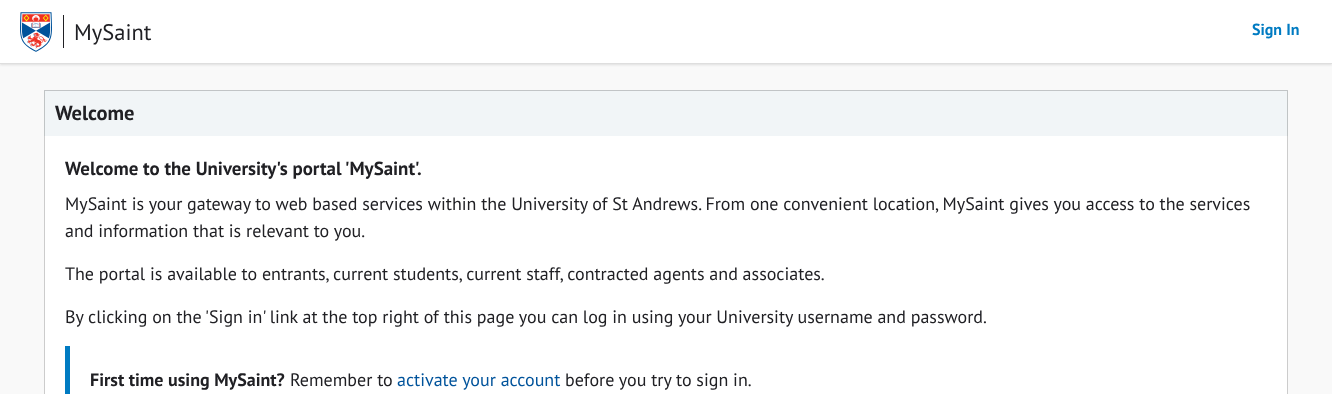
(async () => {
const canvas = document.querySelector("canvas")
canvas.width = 1332
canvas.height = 394
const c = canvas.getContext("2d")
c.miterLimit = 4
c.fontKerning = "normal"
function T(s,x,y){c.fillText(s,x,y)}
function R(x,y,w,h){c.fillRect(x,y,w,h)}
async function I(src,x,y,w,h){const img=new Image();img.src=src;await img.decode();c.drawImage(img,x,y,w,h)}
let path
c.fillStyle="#f9f9f9"
R(0,0,1332,394)
c.fillStyle="#dedede"
c.filter="blur(1px)"
c.beginPath()
c.rect(0,1,1332,64)
c.fill()
c.filter="none"
c.fillStyle="#fff"
R(0,0,1332,63)
c.fillStyle="#dedede"
R(0,63,1332,1)
await I("1.png",20,12,32,40)
c.fillStyle="#202024"
R(63,15,1,33)
c.font="22.5px PT Sans"
T("MySaint",74,40)
c.font="bold 16px PT Sans"
c.fillStyle="#007bc2"
T("Sign In",1252,35)
c.fillStyle="#f1f5f7"
R(44,90,1244,46)
c.fillStyle="#c1c4c6"
path = new Path2D("M44 90h1244l-1 1h-1242z")
c.fill(path)
c.fillStyle="#00000033"
path = new Path2D("M1288 90v46h-1v-45z")
c.fill(path)
path = new Path2D("M44 136v-46l1 1v45z")
c.fill(path)
c.font="bold 20.5px PT Sans"
c.fillStyle="#202024"
T("Welcome",55,120)
c.fillStyle="#fff"
R(45,136,1242,258)
c.fillStyle="#ccc"
path = new Path2D("M1288 136v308l-1-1v-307z")
c.fill(path)
path = new Path2D("M44 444v-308h1v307z")
c.fill(path)
c.font="bold 18.9px PT Sans"
c.fillStyle="#202024"
T("Welcome to the University's portal 'MySaint'.",65,175)
c.font="18px PT Sans"
T("MySaint is your gateway to web based services within the University of St Andrews. From one convenient location, MySaint gives you access to the services",65,210)
T("and information that is relevant to you.",65,237)
T("The portal is available to entrants, current students, current staff, contracted agents and associates.",65,280)
T("By clicking on the 'Sign in' link at the top right of this page you can log in using your University username and password.",65,323)
c.fillStyle="#007bc2"
R(65,346,5,48)
c.font="bold 18px PT Sans"
c.fillStyle="#202024"
T("First time using MySaint?",90,386)
c.font="18px PT Sans"
T("Remember to",290,386)
c.fillStyle="#00539b"
T("activate your account",397,386)
c.fillStyle="#202024"
T("before you try to sign in.",565,386)
})()
